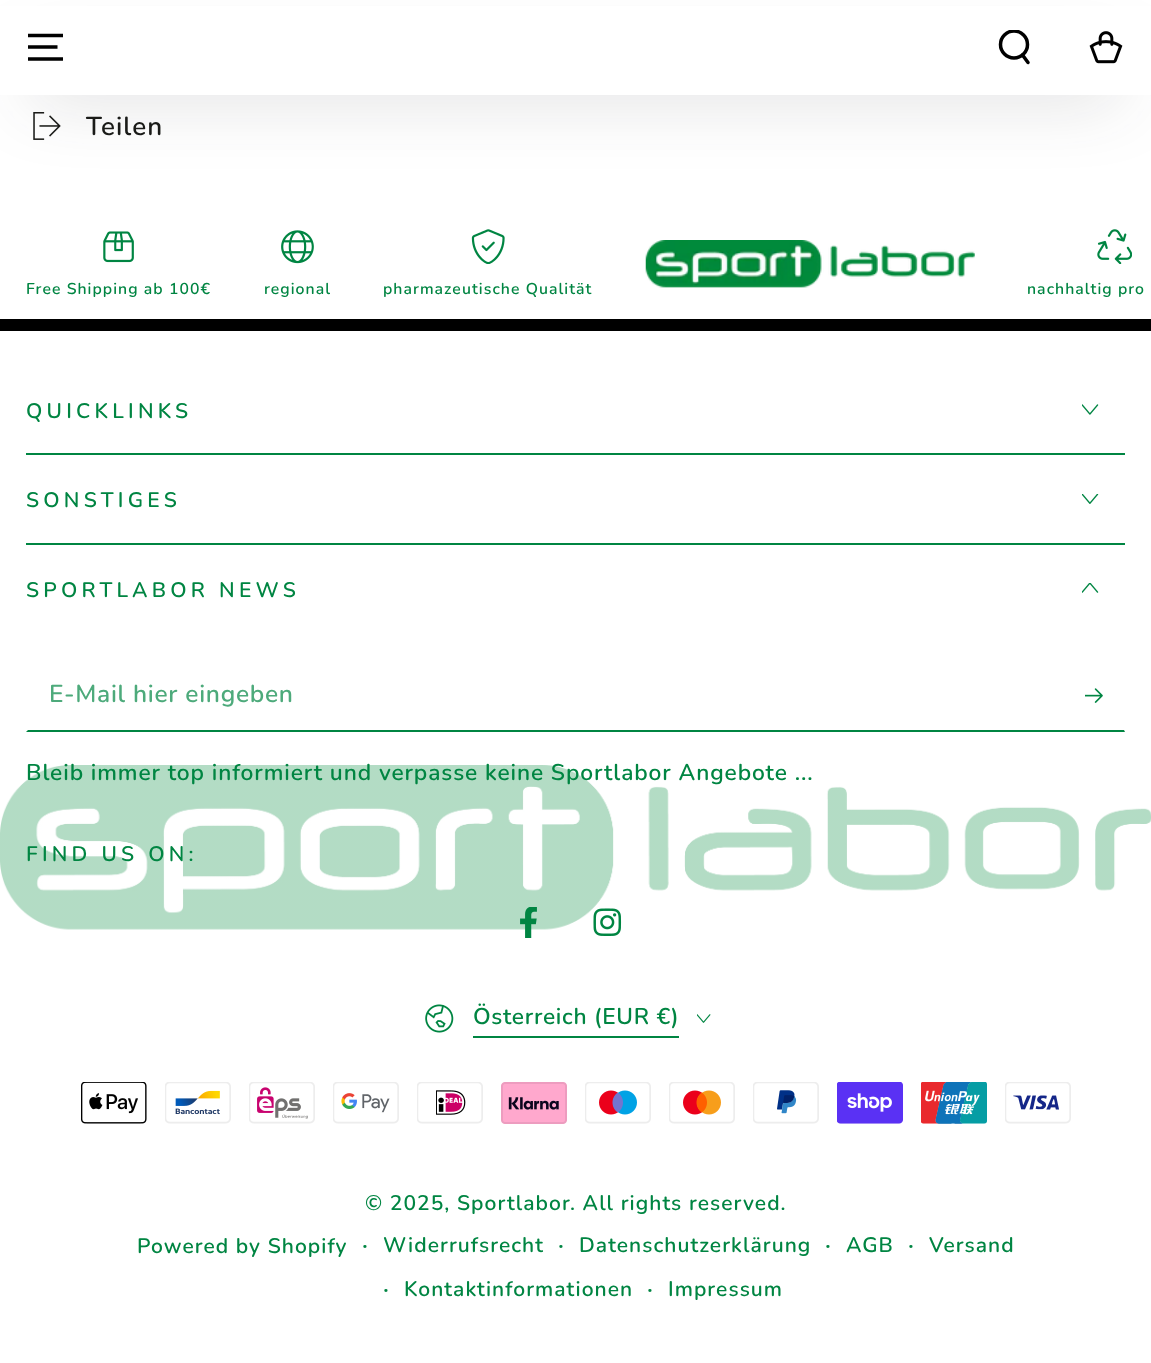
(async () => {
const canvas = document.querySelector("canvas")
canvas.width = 1151
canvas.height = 1363
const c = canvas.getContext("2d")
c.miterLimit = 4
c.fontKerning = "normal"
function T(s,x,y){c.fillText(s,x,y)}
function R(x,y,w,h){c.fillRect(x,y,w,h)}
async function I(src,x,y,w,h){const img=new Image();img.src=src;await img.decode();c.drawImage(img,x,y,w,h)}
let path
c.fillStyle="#fff"
R(0,0,1151,1363)
await I("2.png",33,112,28,28)
c.fillStyle="#21232633"
c.filter="blur(35px)"
c.beginPath()
c.roundRect(26,60,1099,35,17.5)
c.fill()
c.filter="none"
c.fillStyle="#fff"
R(0,6,1151,89)
path = new Path2D("M28 59h35m-35-12h29.5m-29.5-11.5h35")
c.strokeStyle="#000"
c.lineWidth=3.3
c.stroke(path)
c.save()
c.beginPath()
c.rect(998,30,35,35)
c.clip()
c.beginPath()
c.arc(1014,44.5,13.5,0,7)
c.lineWidth=3.5
c.stroke()
c.restore()
path = new Path2D("M1022.5 55l5.5 7.5")
c.lineWidth=3.5
c.lineCap="round"
c.stroke(path)
await I("1.png",1089,31,34,33)
c.letterSpacing="1.05px"
c.font="600 26px Nunito"
c.fillStyle="#1a1b18"
T("Teilen",86,135)
await I("3.png",645,240,330,48)
await I("4.png",103,231,31,32)
c.font="600 15.75px Nunito"
c.fillStyle="#008542"
T("Free Shipping ab 100€",26,294)
await I("5.png",281,230,33,34)
T("regional",264,294)
await I("6.png",471,229,34,35)
T("pharmazeutische Qualität",383,294)
await I("7.png",1097,229,35,35)
T("nachhaltig pro",1027,294)
c.fillStyle="#000"
R(0,319,1151,12)
await I("8.png",0,765,1151,165)
c.fillStyle="#008542"
R(26,453,1099,2)
c.letterSpacing="4.25px"
c.font="600 21px Nunito"
T("QUICKLINKS",26,418)
await I("9.png",1082,404,17,11)
R(26,543,1099,2)
T("SONSTIGES",26,507)
await I("10.png",1082,494,17,10)
T("SPORTLABOR NEWS",26,597)
await I("11.png",1082,583,17,10)
path = new Path2D("M1125 732h-1099l2-2h1096z")
c.fill(path)
c.letterSpacing="0.7px"
c.font="600 24.5px Nunito"
c.fillStyle="#4daa7b"
T("E-Mail hier eingeben",49,702)
await I("12.png",1085,688,18,15)
c.letterSpacing="0.88px"
c.font="600 22.75px Nunito"
c.fillStyle="#008542"
T("Bleib immer top informiert und verpasse keine Sportlabor Angebote ...",26,780)
c.letterSpacing="4.25px"
c.font="600 21px Nunito"
T("FIND US ON:",26,861)
await I("13.png",520,907,17,31)
await I("14.png",593,908,29,28)
await I("15.png",425,1004,29,29)
R(473,1036,206,2)
c.letterSpacing="0.7px"
c.font="600 22.75px Nunito"
T("Österreich (EUR €)",473,1024)
await I("16.png",697,1014,14,9)
await I("17.png",81,1082,66,42)
await I("18.png",165,1082,66,42)
await I("19.png",249,1082,66,42)
await I("20.png",333,1082,66,42)
await I("21.png",417,1082,66,42)
await I("22.png",501,1082,66,42)
await I("23.png",585,1082,66,42)
await I("24.png",669,1082,66,42)
await I("25.png",753,1082,66,42)
await I("26.png",837,1082,66,42)
await I("27.png",921,1082,66,42)
await I("28.png",1005,1082,66,42)
c.letterSpacing="1.05px"
c.font="600 21px Nunito"
T("© 2025, Sportlabor",365,1210)
T(". All rights reserved.",570,1210)
T("Powered by Shopify",137,1253)
c.font="600 24.5px Nunito"
T("·",362,1253)
c.font="600 21px Nunito"
T("Widerrufsrecht",383,1252)
c.font="600 24.5px Nunito"
T("·",558,1253)
c.font="600 21px Nunito"
T("Datenschutzerklärung",579,1252)
c.font="600 24.5px Nunito"
T("·",825,1253)
c.font="600 21px Nunito"
T("AGB",846,1252)
c.font="600 24.5px Nunito"
T("·",908,1253)
c.font="600 21px Nunito"
T("Versand",929,1252)
c.font="600 24.5px Nunito"
T("·",383,1297)
c.font="600 21px Nunito"
T("Kontaktinformationen",404,1296)
c.font="600 24.5px Nunito"
T("·",647,1297)
c.font="600 21px Nunito"
T("Impressum",668,1296)
})()
